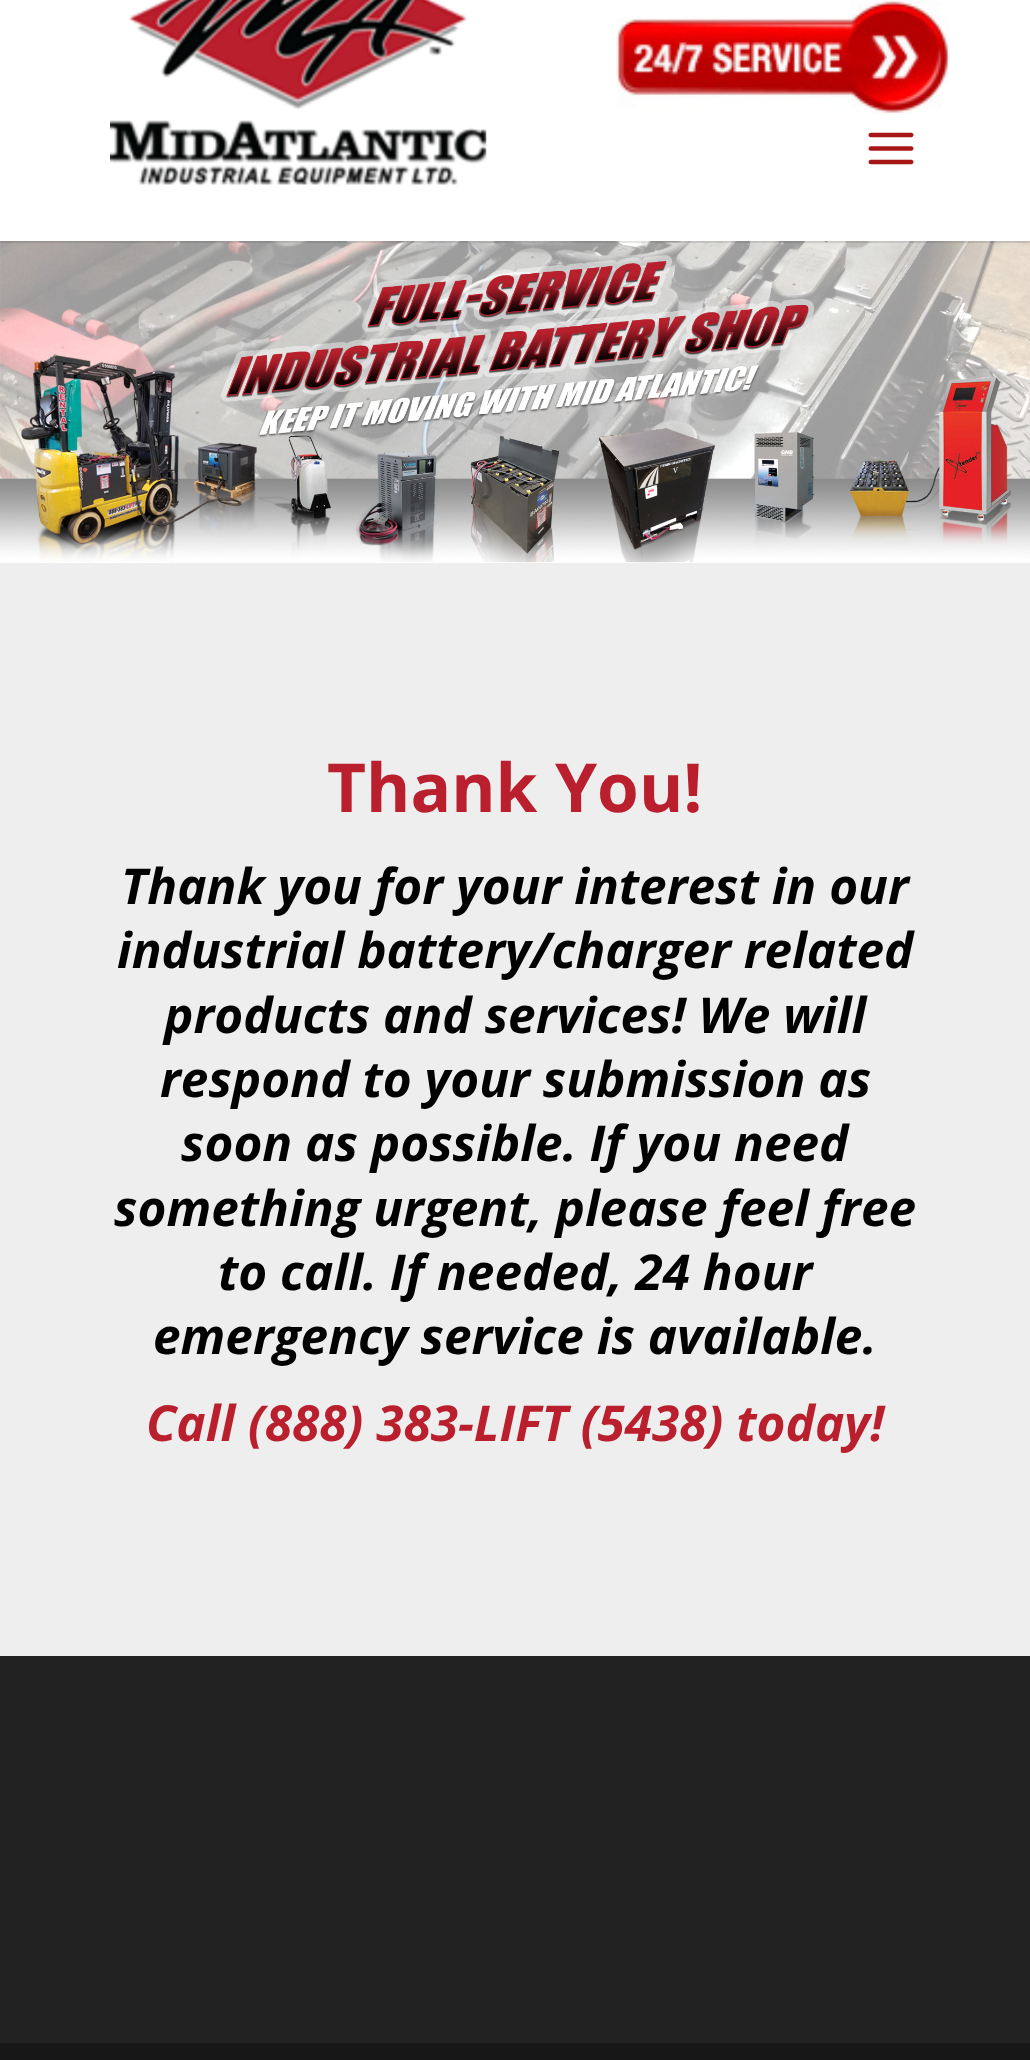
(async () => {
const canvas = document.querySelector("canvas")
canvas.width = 1030
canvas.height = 2060
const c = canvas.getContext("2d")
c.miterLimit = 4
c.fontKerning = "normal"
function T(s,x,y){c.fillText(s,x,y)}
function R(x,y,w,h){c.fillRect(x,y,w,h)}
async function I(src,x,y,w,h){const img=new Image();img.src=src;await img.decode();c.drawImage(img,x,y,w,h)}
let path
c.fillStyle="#fff"
R(0,0,1030,2060)
await I("4.png",0,241,1030,322)
c.fillStyle="#0000001a"
path = new Path2D("M0 241v2h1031v-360h-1v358z")
c.fill(path)
await I("1.png",110,0,377,185)
await I("2.png",616,0,334,115)
await I("3.png",868,132,46,33)
c.fillStyle="#eee"
R(0,563,1030,1093)
c.font="bold 67.5px Open Sans"
c.fillStyle="#b91f2d"
T("Thank You!",327,812)
c.font="italic bold 49.5px Open Sans"
c.fillStyle="#000"
T("Thank you for your interest in our",121,904)
T("industrial battery/charger related",117,968)
T("products and services! We will",164,1033)
T("respond to your submission as",160,1097)
T("soon as possible. If you need",181,1161)
T("something urgent, please feel free",114,1226)
T("to call. If needed, 24 hour",218,1290)
T("emergency service is available.",153,1354)
c.fillStyle="#b91f2d"
T("Call (888) 383-LIFT (5438) today!",146,1441)
c.fillStyle="#222"
R(0,1656,1030,387)
c.fillStyle="#171717"
R(0,2043,1030,17)
})()
